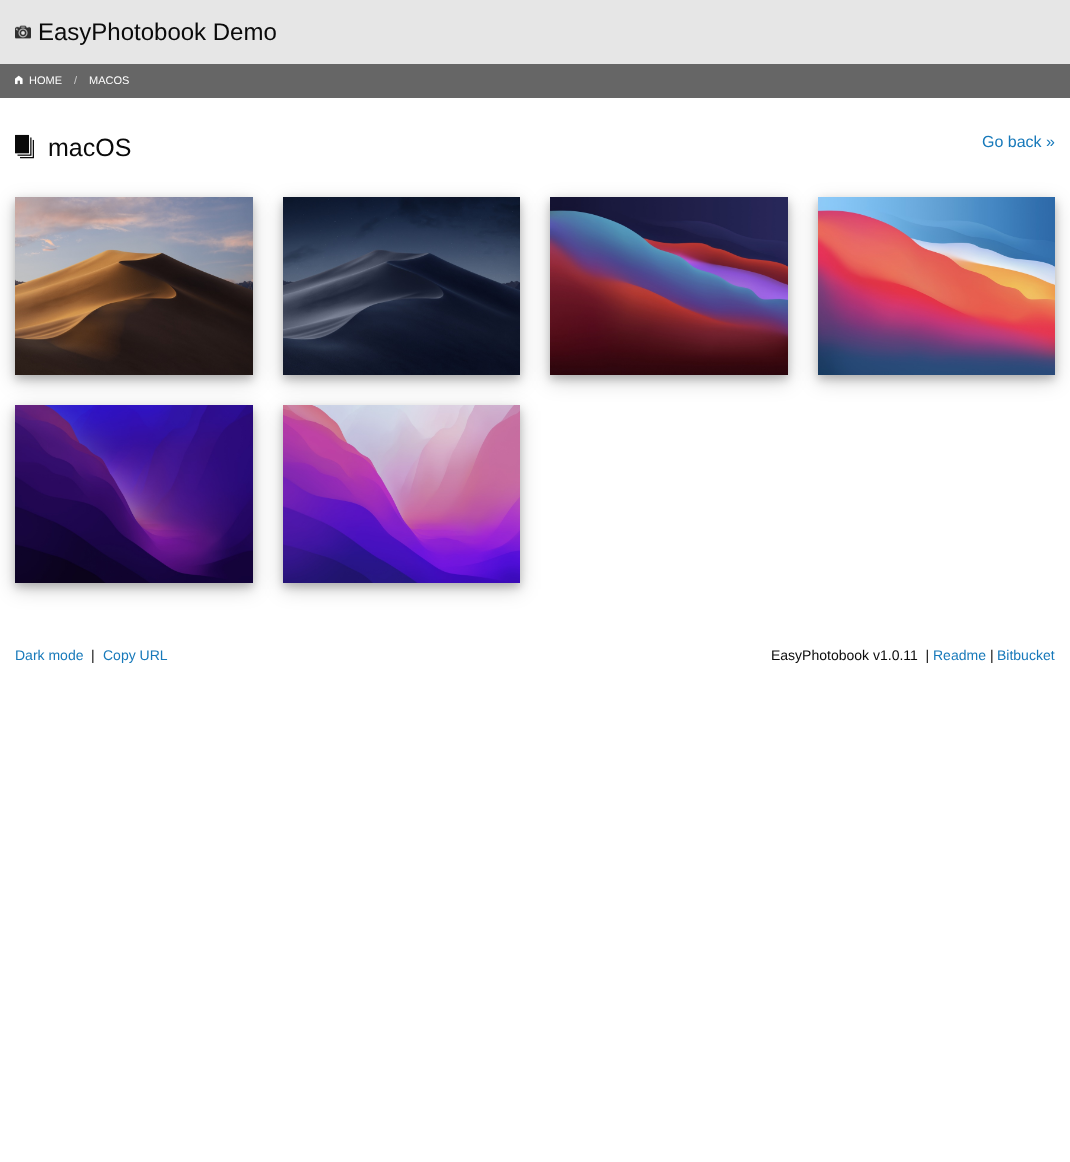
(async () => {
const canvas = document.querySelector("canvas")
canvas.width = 1070
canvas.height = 1162
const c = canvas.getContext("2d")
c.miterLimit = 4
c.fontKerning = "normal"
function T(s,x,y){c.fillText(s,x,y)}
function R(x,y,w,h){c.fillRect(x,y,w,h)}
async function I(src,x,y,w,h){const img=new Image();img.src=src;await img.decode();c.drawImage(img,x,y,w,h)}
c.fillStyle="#fff"
R(0,0,1070,1162)
c.fillStyle="#e6e6e6"
R(0,0,1070,64)
await I("1.png",15,25,16,14)
c.font="24px Liberation Sans"
c.fillStyle="#0a0a0a"
T("EasyPhotobook Demo",38,40)
c.fillStyle="#666"
R(0,64,1070,34)
await I("2.png",15,75,8,10)
c.font="11px Liberation Sans"
c.fillStyle="#fff"
T("HOME",29,84)
c.fillStyle="#cacaca"
T("/",74,84)
c.fillStyle="#fff"
T("MACOS",89,84)
await I("3.png",15,134,19,25)
c.font="25px Liberation Sans"
c.fillStyle="#0a0a0a"
T("macOS",48,156)
c.font="16px Liberation Sans"
c.fillStyle="#1779ba"
T("Go back »",982,147)
c.fillStyle="#00000030"
c.filter="blur(10px)"
c.beginPath()
c.rect(15,203,238,178)
c.fill()
c.filter="none"
c.fillStyle="#00000033"
c.filter="blur(4px)"
c.beginPath()
c.rect(15,201,238,178)
c.fill()
c.filter="none"
await I("4.png",15,197,238,178)
c.fillStyle="#00000030"
c.filter="blur(10px)"
c.beginPath()
c.rect(283,203,237,178)
c.fill()
c.filter="none"
c.fillStyle="#00000033"
c.filter="blur(4px)"
c.beginPath()
c.rect(283,201,237,178)
c.fill()
c.filter="none"
await I("5.png",283,197,237,178)
c.fillStyle="#00000030"
c.filter="blur(10px)"
c.beginPath()
c.rect(550,203,238,178)
c.fill()
c.filter="none"
c.fillStyle="#00000033"
c.filter="blur(4px)"
c.beginPath()
c.rect(550,201,238,178)
c.fill()
c.filter="none"
await I("6.png",550,197,238,178)
c.fillStyle="#00000030"
c.filter="blur(10px)"
c.beginPath()
c.rect(818,203,237,178)
c.fill()
c.filter="none"
c.fillStyle="#00000033"
c.filter="blur(4px)"
c.beginPath()
c.rect(818,201,237,178)
c.fill()
c.filter="none"
await I("7.png",818,197,237,178)
c.fillStyle="#00000030"
c.filter="blur(10px)"
c.beginPath()
c.rect(15,411,238,178)
c.fill()
c.filter="none"
c.fillStyle="#00000033"
c.filter="blur(4px)"
c.beginPath()
c.rect(15,409,238,178)
c.fill()
c.filter="none"
await I("8.png",15,405,238,178)
c.fillStyle="#00000030"
c.filter="blur(10px)"
c.beginPath()
c.rect(283,411,237,178)
c.fill()
c.filter="none"
c.fillStyle="#00000033"
c.filter="blur(4px)"
c.beginPath()
c.rect(283,409,237,178)
c.fill()
c.filter="none"
await I("9.png",283,405,237,178)
c.font="14px Liberation Sans"
c.fillStyle="#1779ba"
T("Dark mode",15,660)
c.fillStyle="#0a0a0a"
T("|",91,660)
c.fillStyle="#1779ba"
T("Copy URL",103,660)
c.fillStyle="#0a0a0a"
T("EasyPhotobook v1.0.11  |",771,660)
c.fillStyle="#1779ba"
T("Readme",933,660)
c.fillStyle="#0a0a0a"
T("|",990,660)
c.fillStyle="#1779ba"
T("Bitbucket",997,660)
})()
